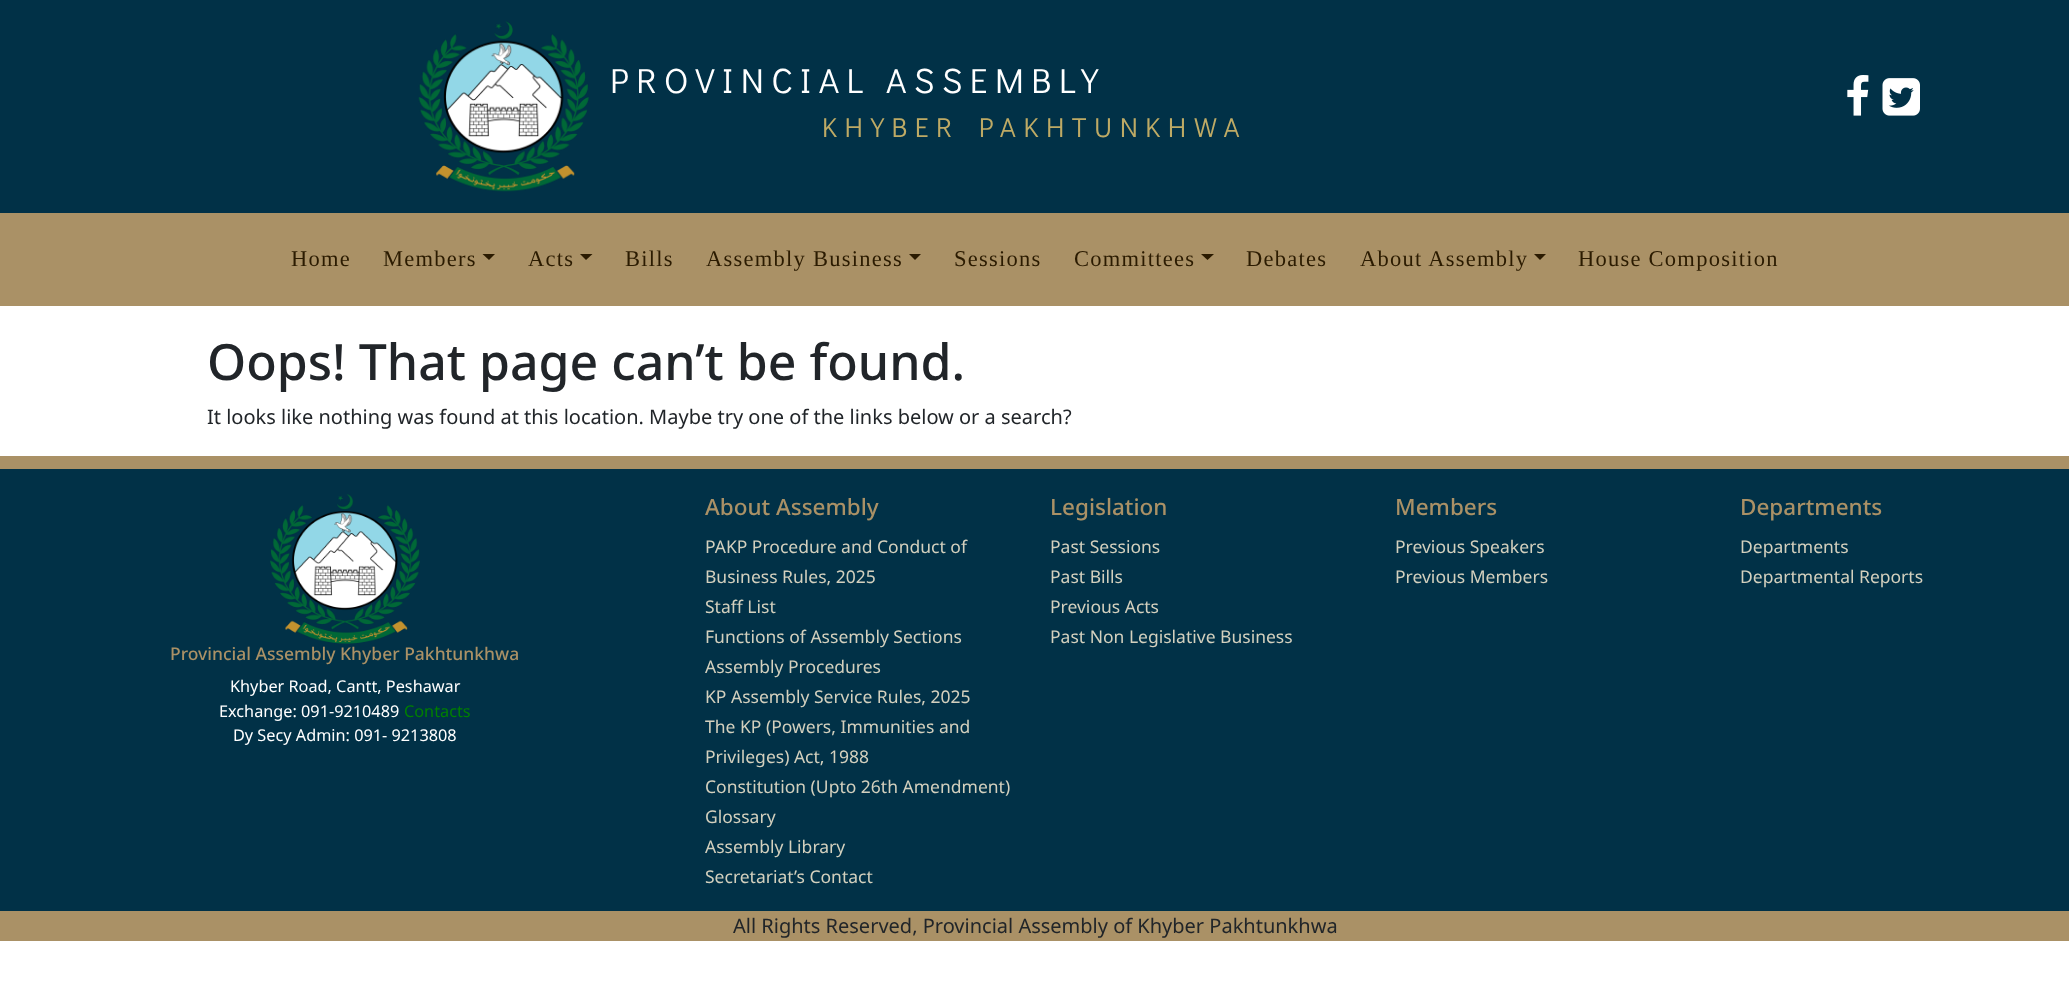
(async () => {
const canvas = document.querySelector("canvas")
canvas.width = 2069
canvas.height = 1001
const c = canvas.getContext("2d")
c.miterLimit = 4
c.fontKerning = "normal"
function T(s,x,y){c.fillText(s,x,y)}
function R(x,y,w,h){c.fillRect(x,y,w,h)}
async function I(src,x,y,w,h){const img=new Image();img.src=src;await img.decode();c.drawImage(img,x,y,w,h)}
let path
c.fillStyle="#fff"
R(0,0,2069,1001)
c.fillStyle="#013147"
R(0,0,2069,213)
await I("1.png",418,21,171,171)
c.letterSpacing="7.5px"
c.font="35px Didact Gothic"
c.fillStyle="#fff"
T("PROVINCIAL ASSEMBLY",610,93)
c.font="27.5px Didact Gothic"
c.fillStyle="#beaa65"
T("KHYBER PAKHTUNKHWA",822,137)
await I("2.png",1847,75,22,41)
await I("3.png",1882,78,38,38)
c.fillStyle="#aa9166"
R(0,213,2069,93)
c.letterSpacing="1.25px"
c.font="22.5px Liberation Serif"
c.fillStyle="#2b1b01"
T("Home",291,266)
T("Members",383,266)
path = new Path2D("M482.5 254h12.5l-6 6z")
c.fill(path)
T("Acts",528,266)
path = new Path2D("M580 254h12.5l-6.5 6z")
c.fill(path)
T("Bills",625,266)
T("Assembly Business",706,266)
path = new Path2D("M909 254h12l-6 6z")
c.fill(path)
T("Sessions",954,266)
T("Committees",1074,266)
path = new Path2D("M1201 254h13l-6.5 6z")
c.fill(path)
T("Debates",1246,266)
T("About Assembly",1360,266)
path = new Path2D("M1534 254h12l-6 6z")
c.fill(path)
T("House Composition",1578,266)
c.letterSpacing="0px"
c.font="500 50px Noto Sans"
c.fillStyle="#212529"
T("Oops! That page can’t be found.",207,380)
c.font="20px Noto Sans"
T("It looks like nothing was found at this location. Maybe try one of the links below or a search?",207,424)
c.fillStyle="#013147"
R(0,469,2069,442)
c.fillStyle="#aa9166"
R(0,456,2069,13)
c.font="500 22.5px Noto Sans"
T("About Assembly",705,515)
c.font="17.5px Noto Sans"
c.fillStyle="#d3d0be"
T("PAKP Procedure and Conduct of",705,553)
T("Business Rules, 2025",705,583)
T("Staff List",705,613)
T("Functions of Assembly Sections",705,643)
T("Assembly Procedures",705,673)
T("KP Assembly Service Rules, 2025",705,703)
T("The KP (Powers, Immunities and",705,733)
T("Privileges) Act, 1988",705,763)
T("Constitution (Upto 26th Amendment)",705,793)
T("Glossary",705,823)
T("Assembly Library",705,853)
T("Secretariat’s Contact",705,883)
c.font="500 22.5px Noto Sans"
c.fillStyle="#aa9166"
T("Legislation",1050,515)
c.font="17.5px Noto Sans"
c.fillStyle="#d3d0be"
T("Past Sessions",1050,553)
T("Past Bills",1050,583)
T("Previous Acts",1050,613)
T("Past Non Legislative Business",1050,643)
c.font="500 22.5px Noto Sans"
c.fillStyle="#aa9166"
T("Members",1395,515)
c.font="17.5px Noto Sans"
c.fillStyle="#d3d0be"
T("Previous Speakers",1395,553)
T("Previous Members",1395,583)
c.font="500 22.5px Noto Sans"
c.fillStyle="#aa9166"
T("Departments",1740,515)
c.font="17.5px Noto Sans"
c.fillStyle="#d3d0be"
T("Departments",1740,553)
T("Departmental Reports",1740,583)
await I("4.png",270,494,150,150)
c.font="500 17.5px Noto Sans"
c.fillStyle="#aa9166"
T("Provincial Assembly Khyber Pakhtunkhwa",170,660)
c.font="16.25px Noto Sans"
c.fillStyle="#fff"
T("Khyber Road, Cantt, Peshawar",230,692)
T("Exchange: 091-9210489",219,717)
c.fillStyle="#008000"
T("Contacts",404,717)
c.fillStyle="#fff"
T("Dy Secy Admin: 091- 9213808",233,741)
c.fillStyle="#aa9166"
R(0,911,2069,30)
c.font="20px Noto Sans"
c.fillStyle="#212529"
T("All Rights Reserved, Provincial Assembly of Khyber Pakhtunkhwa",733,933)
})()
